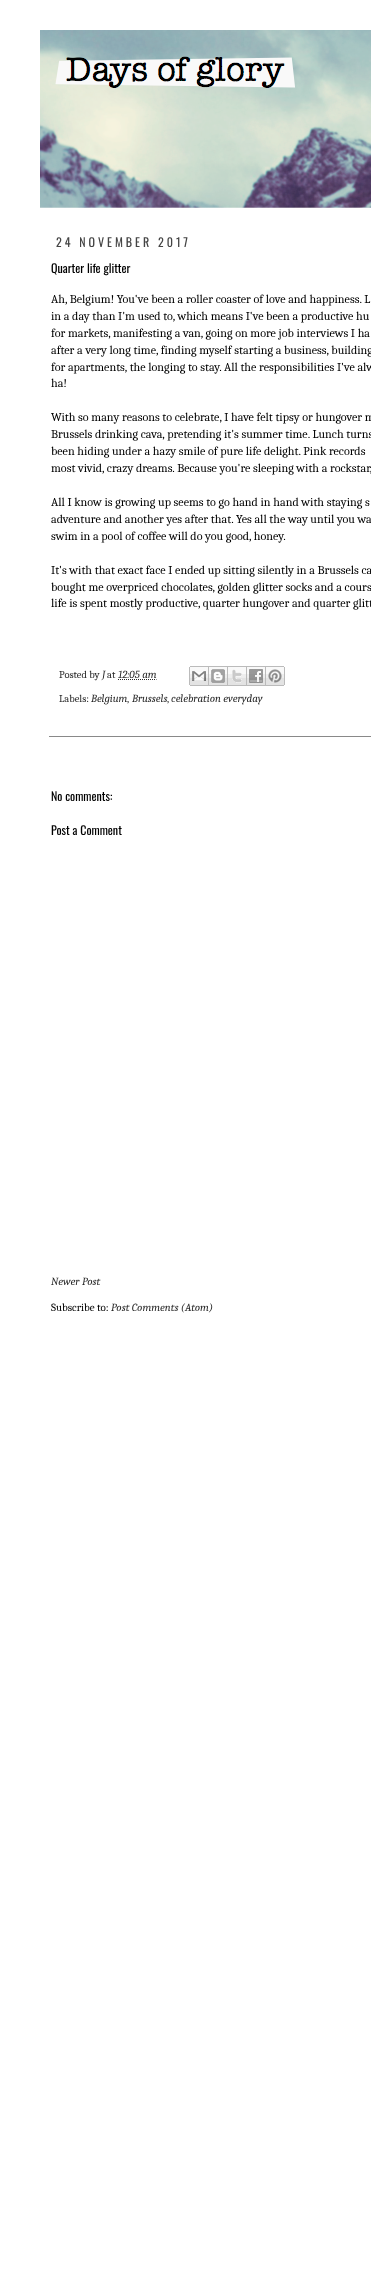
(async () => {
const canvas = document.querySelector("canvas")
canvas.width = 371
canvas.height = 2294
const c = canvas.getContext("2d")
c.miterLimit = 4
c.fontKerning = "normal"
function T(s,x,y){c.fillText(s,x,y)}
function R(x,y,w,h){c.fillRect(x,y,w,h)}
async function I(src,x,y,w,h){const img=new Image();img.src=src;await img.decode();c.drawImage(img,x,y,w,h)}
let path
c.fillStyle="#fff"
R(0,0,371,2294)
await I("1.png",40,30,331,178)
c.letterSpacing="3px"
c.font="12px Oswald"
c.fillStyle="#444"
T("24 NOVEMBER 2017",56,247)
c.letterSpacing="0px"
c.fillStyle="#000"
T("Quarter life glitter",51,273)
c.font="12.1px Caladea"
T("Ah, Belgium! You've been a roller coaster of love and happiness. L",51,303)
T("in a day than I'm used to, which means I've been a productive hu",51,320)
T("for markets, manifesting a van, going on more job interviews I ha",51,337)
T("after a very long time, finding myself starting a business, building",51,354)
T("for apartments, the longing to stay. All the responsibilities I've alw",51,371)
T("ha!",51,387)
T("With so many reasons to celebrate, I have felt tipsy or hungover m",51,421)
T("Brussels drinking cava, pretending it's summer time. Lunch turns",51,438)
T("been hiding under a hazy smile of pure life delight. Pink records",51,455)
T("most vivid, crazy dreams. Because you're sleeping with a rockstar,",51,472)
T("All I know is growing up seems to go hand in hand with staying s",51,506)
T("adventure and another yes after that. Yes all the way until you wa",51,523)
T("swim in a pool of coffee will do you good, honey.",51,540)
T("It's with that exact face I ended up sitting silently in a Brussels ca",51,574)
T("bought me overpriced chocolates, golden glitter socks and a cours",51,591)
T("life is spent mostly productive, quarter hungover and quarter glitt",51,607)
c.fillStyle="#898989"
R(49,736,322,1)
c.font="10.5px Caladea"
c.fillStyle="#2a2a2a"
T("Posted by",59,678)
c.font="italic 11px Caladea"
T("J",102,678)
c.font="10.5px Caladea"
T("at",107,678)
path = new Path2D("M118 679.5h38.5")
c.strokeStyle="#2a2a2a"
c.setLineDash([1,1])
c.stroke(path)
c.font="italic 11px Caladea"
T("12:05 am",118,678)
await I("2.png",189,666,20,20)
await I("3.png",209,666,19,20)
await I("4.png",228,666,19,20)
await I("5.png",247,666,19,20)
await I("6.png",266,666,19,20)
c.font="10.5px Caladea"
T("Labels:",59,702)
c.font="italic 11px Caladea"
T("Belgium",91,702)
c.font="10.5px Caladea"
T(",",127,702)
c.font="italic 11px Caladea"
T("Brussels",132,702)
c.font="10.5px Caladea"
T(",",167,702)
c.font="italic 11px Caladea"
T("celebration everyday",171,702)
c.font="12px Oswald"
c.fillStyle="#000"
T("No comments:",51,801)
T("Post a Comment",51,835)
c.font="italic 11px Caladea"
c.fillStyle="#2a2a2a"
T("Newer Post",51,1285)
c.font="11px Caladea"
c.fillStyle="#000"
T("Subscribe to:",51,1311)
c.font="italic 11px Caladea"
c.fillStyle="#2a2a2a"
T("Post Comments (Atom)",111,1311)
})()
